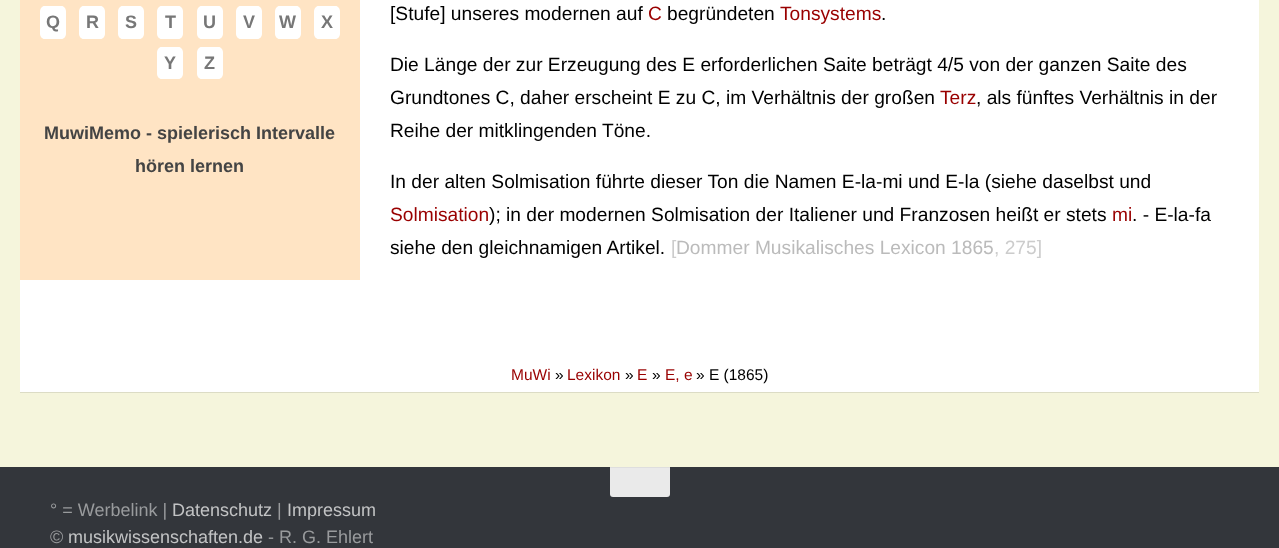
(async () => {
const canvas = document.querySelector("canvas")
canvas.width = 1279
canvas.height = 548
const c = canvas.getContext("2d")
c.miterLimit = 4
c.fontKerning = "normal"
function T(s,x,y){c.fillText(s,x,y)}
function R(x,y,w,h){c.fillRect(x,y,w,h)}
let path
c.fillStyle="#f5f5dc"
R(0,0,1279,548)
c.fillStyle="#0000001a"
c.filter="blur(0.5px)"
c.beginPath()
c.rect(20,-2,1239,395)
c.fill()
c.filter="none"
c.fillStyle="#fff"
R(20,0,1239,392)
c.fillStyle="#ffe4c4"
R(20,0,340,280)
c.fillStyle="#fff"
path = new Path2D("M44.5 6h17c2.5 0 4.5 2.5 4.5 5.5v22c0 3-2 5.5-4.5 5.5h-17c-2.5 0-4.5-2.5-4.5-5.5v-22c0-3 2-5.5 4.5-5.5z")
c.fill(path)
c.font="bold 18px Liberation Sans"
c.fillStyle="#777"
T("Q",46,28)
c.fillStyle="#fff"
path = new Path2D("M83.5 6h17c2.5 0 4.5 2.5 4.5 5.5v22c0 3-2 5.5-4.5 5.5h-17c-2.5 0-4.5-2.5-4.5-5.5v-22c0-3 2-5.5 4.5-5.5z")
c.fill(path)
c.fillStyle="#777"
T("R",86,28)
c.fillStyle="#fff"
path = new Path2D("M122.5 6h17c2.5 0 4.5 2.5 4.5 5.5v22c0 3-2 5.5-4.5 5.5h-17c-2.5 0-4.5-2.5-4.5-5.5v-22c0-3 2-5.5 4.5-5.5z")
c.fill(path)
c.fillStyle="#777"
T("S",125,28)
c.fillStyle="#fff"
path = new Path2D("M161.5 6h17c2.5 0 4.5 2.5 4.5 5.5v22c0 3-2 5.5-4.5 5.5h-17c-2.5 0-4.5-2.5-4.5-5.5v-22c0-3 2-5.5 4.5-5.5z")
c.fill(path)
c.fillStyle="#777"
T("T",165,28)
c.fillStyle="#fff"
path = new Path2D("M201.5 6h17c2.5 0 4.5 2.5 4.5 5.5v22c0 3-2 5.5-4.5 5.5h-17c-2.5 0-4.5-2.5-4.5-5.5v-22c0-3 2-5.5 4.5-5.5z")
c.fill(path)
c.fillStyle="#777"
T("U",203,28)
c.fillStyle="#fff"
path = new Path2D("M240.5 6h17c2.5 0 4.5 2.5 4.5 5.5v22c0 3-2 5.5-4.5 5.5h-17c-2.5 0-4.5-2.5-4.5-5.5v-22c0-3 2-5.5 4.5-5.5z")
c.fill(path)
c.fillStyle="#777"
T("V",243,28)
c.fillStyle="#fff"
path = new Path2D("M279.5 6h17c2.5 0 4.5 2.5 4.5 5.5v22c0 3-2 5.5-4.5 5.5h-17c-2.5 0-4.5-2.5-4.5-5.5v-22c0-3 2-5.5 4.5-5.5z")
c.fill(path)
c.fillStyle="#777"
T("W",279,28)
c.fillStyle="#fff"
path = new Path2D("M318.5 6h17c2.5 0 4.5 2.5 4.5 5.5v22c0 3-2 5.5-4.5 5.5h-17c-2.5 0-4.5-2.5-4.5-5.5v-22c0-3 2-5.5 4.5-5.5z")
c.fill(path)
c.fillStyle="#777"
T("X",321,28)
c.fillStyle="#fff"
path = new Path2D("M161.5 47h17c2.5 0 4.5 2.5 4.5 5.5v21c0 3-2 5.5-4.5 5.5h-17c-2.5 0-4.5-2.5-4.5-5.5v-21c0-3 2-5.5 4.5-5.5z")
c.fill(path)
c.fillStyle="#777"
T("Y",164,69)
c.fillStyle="#fff"
path = new Path2D("M201.5 47h17c2.5 0 4.5 2.5 4.5 5.5v21c0 3-2 5.5-4.5 5.5h-17c-2.5 0-4.5-2.5-4.5-5.5v-21c0-3 2-5.5 4.5-5.5z")
c.fill(path)
c.fillStyle="#777"
T("Z",204,69)
c.fillStyle="#444"
T("MuwiMemo - spielerisch Intervalle",44,139)
T("hören lernen",135,172)
c.font="19.2px Liberation Sans"
c.fillStyle="#000"
T("[Stufe] unseres modernen auf",390,20)
c.fillStyle="#900"
T("C",648,20)
c.fillStyle="#000"
T("begründeten",667,20)
c.fillStyle="#900"
T("Tonsystems",780,20)
c.fillStyle="#000"
T(".",881,20)
T("Die Länge der zur Erzeugung des E erforderlichen Saite beträgt 4/5 von der ganzen Saite des",390,71)
T("Grundtones C, daher erscheint E zu C, im Verhältnis der großen",390,104)
c.fillStyle="#900"
T("Terz",940,104)
c.fillStyle="#000"
T(", als fünftes Verhältnis in der",976,104)
T("Reihe der mitklingenden Töne.",390,137)
T("In der alten Solmisation führte dieser Ton die Namen E-la-mi und E-la (siehe daselbst und",390,188)
c.fillStyle="#900"
T("Solmisation",390,221)
c.fillStyle="#000"
T("); in der modernen Solmisation der Italiener und Franzosen heißt er stets",489,221)
c.fillStyle="#900"
T("mi",1112,221)
c.fillStyle="#000"
T(". - E-la-fa",1132,221)
T("siehe den gleichnamigen Artikel.",390,254)
c.fillStyle="#ccc"
T("[",671,254)
c.fillStyle="#bbb"
T("Dommer Musikalisches Lexicon 1865",676,254)
c.fillStyle="#ccc"
T(", 275]",994,254)
c.font="15.5px Liberation Sans"
c.fillStyle="#900"
T("MuWi",511,380)
c.fillStyle="#000"
T("»",555,380)
c.fillStyle="#900"
T("Lexikon",567,380)
c.fillStyle="#000"
T("»",625,380)
c.fillStyle="#900"
T("E",637,380)
c.fillStyle="#000"
T("»",652,380)
c.fillStyle="#900"
T("E, e",665,380)
c.fillStyle="#000"
T("» E (1865)",696,380)
c.fillStyle="#33363b"
R(0,467,1279,81)
c.fillStyle="#eaeaea"
c.beginPath()
c.roundRect(610,467,60,30,[0,0,3,3])
c.fill()
c.fillStyle="#dedede"
R(610,467,60,1)
c.font="18px Liberation Sans"
c.fillStyle="#999b9d"
T("° = Werbelink |",50,516)
c.fillStyle="#c2c3c4"
T("Datenschutz",172,516)
c.fillStyle="#999b9d"
T("|",277,516)
c.fillStyle="#c2c3c4"
T("Impressum",287,516)
c.fillStyle="#999b9d"
T("©",50,543)
c.fillStyle="#c2c3c4"
T("musikwissenschaften.de",68,543)
c.fillStyle="#999b9d"
T("- R. G. Ehlert",268,543)
})()
